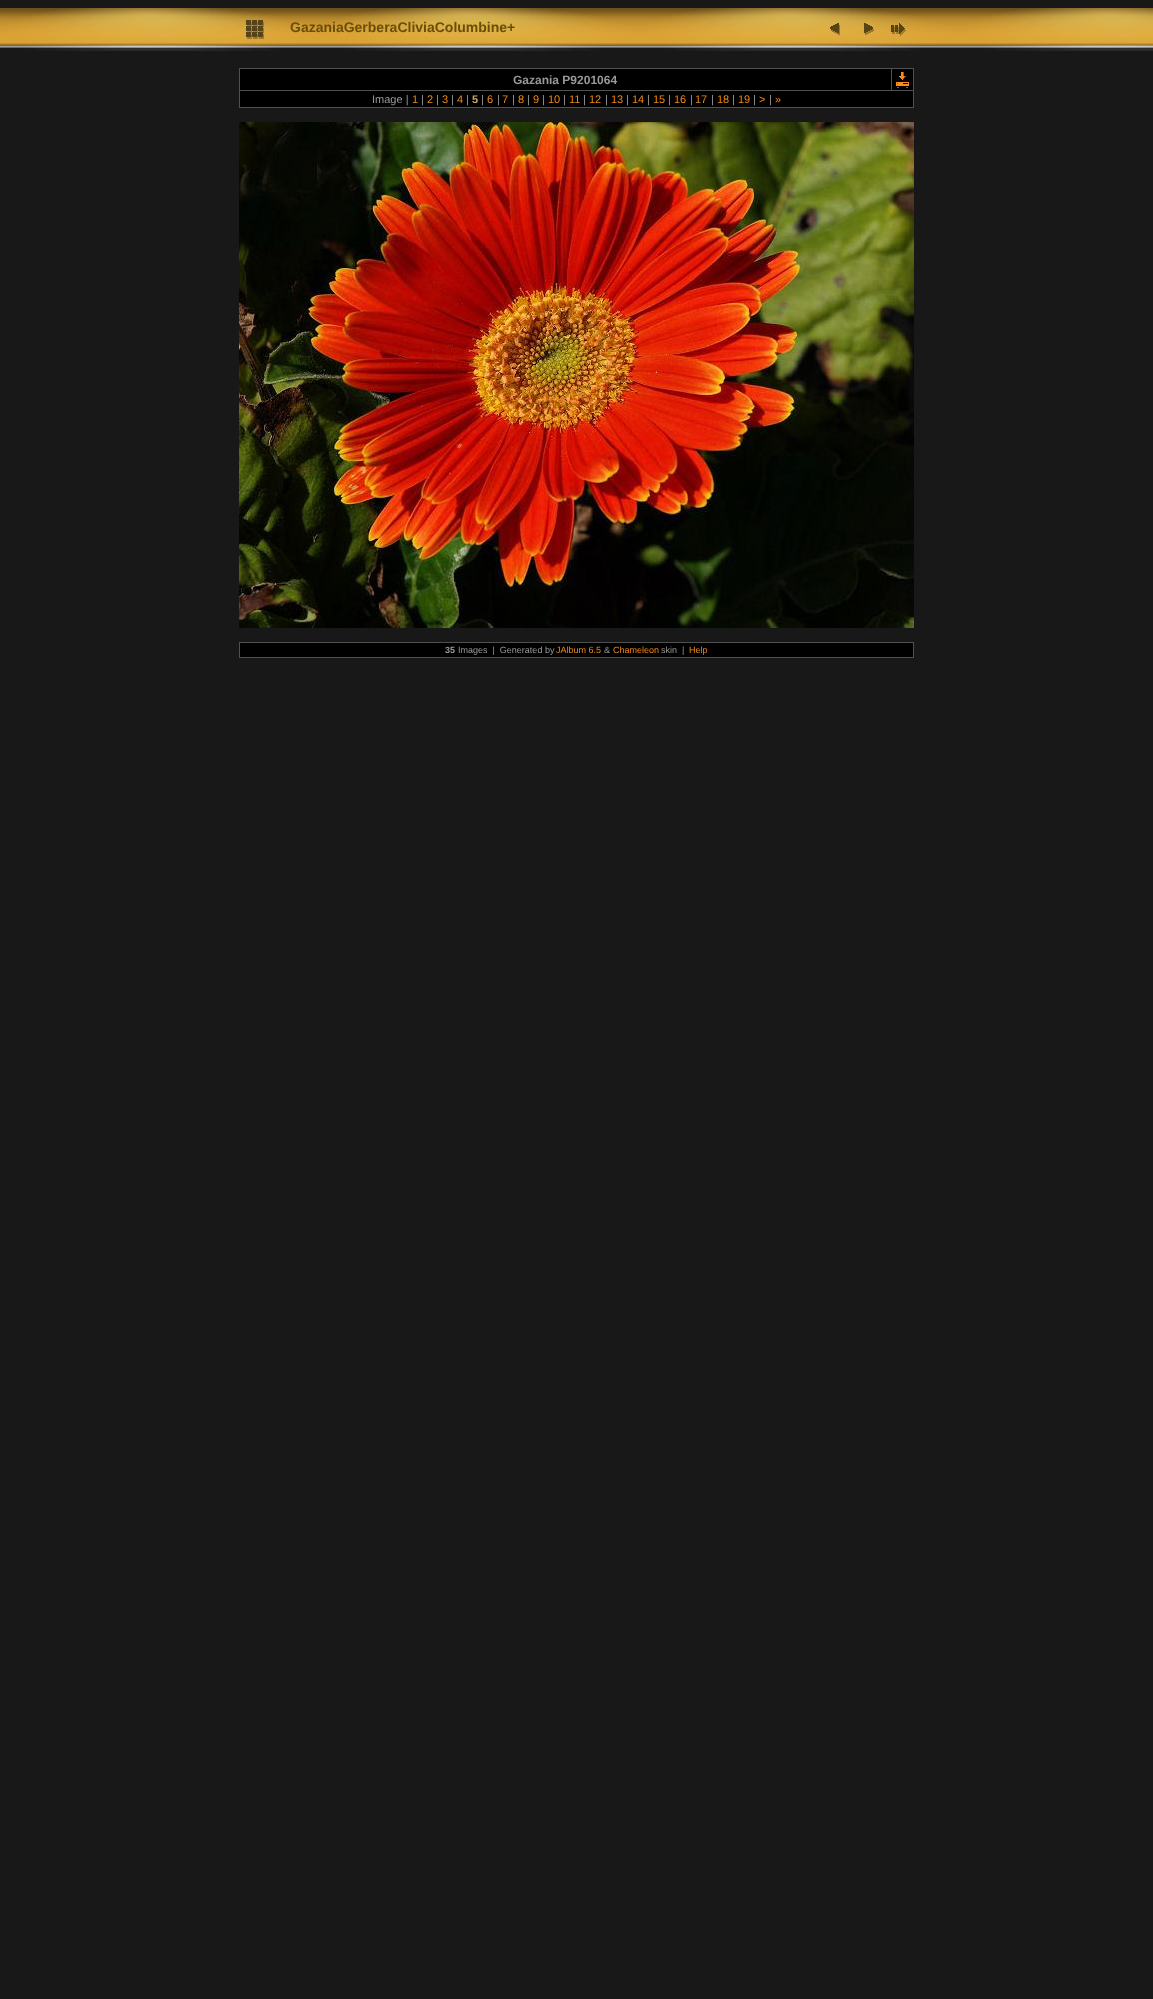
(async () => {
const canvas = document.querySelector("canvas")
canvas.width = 1153
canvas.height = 1999
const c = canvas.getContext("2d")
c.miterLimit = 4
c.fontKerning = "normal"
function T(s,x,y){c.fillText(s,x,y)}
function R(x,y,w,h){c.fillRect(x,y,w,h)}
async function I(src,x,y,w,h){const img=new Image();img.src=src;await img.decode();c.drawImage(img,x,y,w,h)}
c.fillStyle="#181818"
R(0,0,1153,1999)
await I("1.png",0,8,1153,43)
await I("2.png",246,20,18,19)
c.font="bold 14px Liberation Sans"
c.fillStyle="#694e0a"
T("GazaniaGerberaCliviaColumbine+",290,32)
await I("3.png",830,23,10,12)
await I("4.png",864,23,10,12)
await I("5.png",891,23,15,13)
c.fillStyle="#000"
R(240,69,673,38)
c.fillStyle="#505050"
R(239,68,675,1)
R(913,68,1,40)
R(239,107,675,1)
R(239,68,1,40)
c.font="bold 12px Liberation Sans"
c.fillStyle="#999"
T("Gazania P9201064",513,84)
c.fillStyle="#505050"
R(239,90,675,1)
R(891,68,1,23)
await I("6.png",896,72,13,16)
c.font="11px Liberation Sans"
c.fillStyle="#999"
T("Image |",372,103)
c.fillStyle="#ed8815"
T("1",412,103)
c.fillStyle="#999"
T("|",421,103)
c.fillStyle="#ed8815"
T("2",427,103)
c.fillStyle="#999"
T("|",436,103)
c.fillStyle="#ed8815"
T("3",442,103)
c.fillStyle="#999"
T("|",451,103)
c.fillStyle="#ed8815"
T("4",457,103)
c.fillStyle="#999"
T("|",466,103)
c.font="bold 11px Liberation Sans"
c.fillStyle="#ca6"
T("5",472,103)
c.font="11px Liberation Sans"
c.fillStyle="#999"
T("|",481,103)
c.fillStyle="#ed8815"
T("6",487,103)
c.fillStyle="#999"
T("|",497,103)
c.fillStyle="#ed8815"
T("7",502,103)
c.fillStyle="#999"
T("|",512,103)
c.fillStyle="#ed8815"
T("8",518,103)
c.fillStyle="#999"
T("|",527,103)
c.fillStyle="#ed8815"
T("9",533,103)
c.fillStyle="#999"
T("|",542,103)
c.fillStyle="#ed8815"
T("10",548,103)
c.fillStyle="#999"
T("|",563,103)
c.fillStyle="#ed8815"
T("11",569,103)
c.fillStyle="#999"
T("|",583,103)
c.fillStyle="#ed8815"
T("12",589,103)
c.fillStyle="#999"
T("|",605,103)
c.fillStyle="#ed8815"
T("13",611,103)
c.fillStyle="#999"
T("|",626,103)
c.fillStyle="#ed8815"
T("14",632,103)
c.fillStyle="#999"
T("|",647,103)
c.fillStyle="#ed8815"
T("15",653,103)
c.fillStyle="#999"
T("|",668,103)
c.fillStyle="#ed8815"
T("16",674,103)
c.fillStyle="#999"
T("|",690,103)
c.fillStyle="#ed8815"
T("17",695,103)
c.fillStyle="#999"
T("|",711,103)
c.fillStyle="#ed8815"
T("18",717,103)
c.fillStyle="#999"
T("|",732,103)
c.fillStyle="#ed8815"
T("19",738,103)
c.fillStyle="#999"
T("|",753,103)
c.fillStyle="#ed8815"
T(">",759,103)
c.fillStyle="#999"
T("|",769,103)
c.fillStyle="#ed8815"
T("»",775,103)
await I("7.png",239,122,675,506)
c.fillStyle="#000"
R(240,643,673,14)
c.fillStyle="#505050"
R(239,642,675,1)
R(913,642,1,16)
R(239,657,675,1)
R(239,642,1,16)
c.font="bold 9px Liberation Sans"
c.fillStyle="#999"
T("35",445,653)
c.font="9px Liberation Sans"
T("Images  |  Generated by",458,653)
c.fillStyle="#ed8815"
T("JAlbum 6.5",556,653)
c.fillStyle="#999"
T("&",604,653)
c.fillStyle="#ed8815"
T("Chameleon",613,653)
c.fillStyle="#999"
T("skin  |",661,653)
c.fillStyle="#ed8815"
T("Help",689,653)
})()
